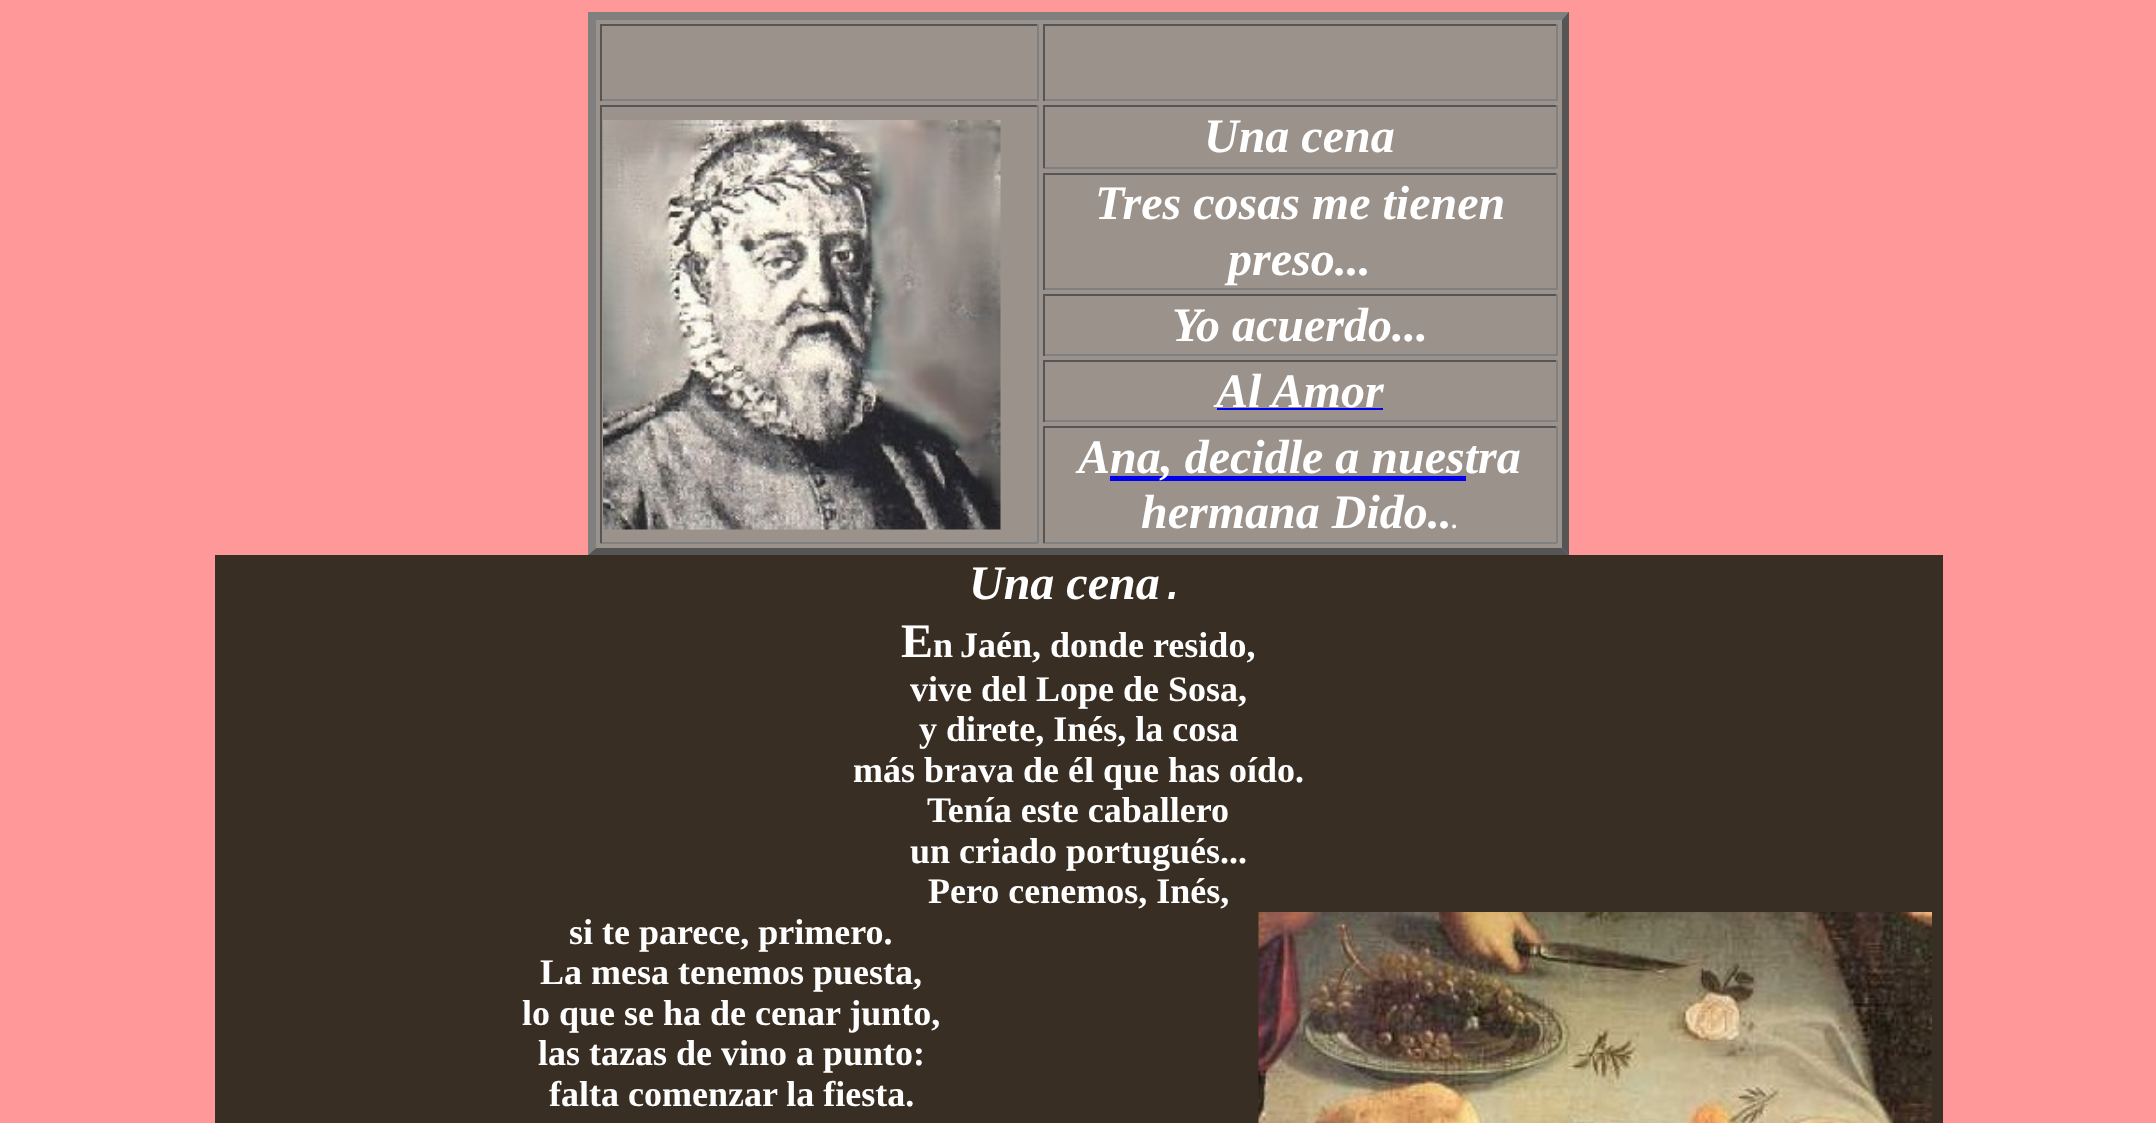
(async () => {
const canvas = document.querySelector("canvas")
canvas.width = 2156
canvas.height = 1123
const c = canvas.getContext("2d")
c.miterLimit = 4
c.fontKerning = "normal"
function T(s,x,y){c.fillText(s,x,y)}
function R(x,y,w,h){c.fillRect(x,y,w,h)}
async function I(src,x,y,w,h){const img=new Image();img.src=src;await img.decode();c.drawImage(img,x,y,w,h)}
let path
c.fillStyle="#f99"
R(0,0,2156,1123)
c.fillStyle="#9b928c"
R(588,12,981,543)
c.fillStyle="#808080"
path = new Path2D("M588 12h981l-7 8h-966z")
c.fill(path)
c.fillStyle="#555"
path = new Path2D("M1569 12v543l-7-7v-528z")
c.fill(path)
path = new Path2D("M1569 555h-981l8-7h966z")
c.fill(path)
c.fillStyle="#808080"
path = new Path2D("M588 555v-543l8 8v528z")
c.fill(path)
c.fillStyle="#555"
R(600,24,438,2)
c.fillStyle="#808080"
R(1037,24,2,77)
R(600,99,438,2)
c.fillStyle="#555"
R(600,24,2,77)
R(1043,24,514,2)
c.fillStyle="#808080"
R(1556,24,2,77)
R(1043,99,514,2)
c.fillStyle="#555"
R(1043,24,2,77)
R(600,105,438,2)
c.fillStyle="#808080"
R(1037,105,2,438)
R(600,542,438,2)
c.fillStyle="#555"
R(600,105,2,438)
await I("1.png",603,120,398,410)
R(1043,105,514,2)
c.fillStyle="#808080"
R(1556,105,2,63)
R(1043,167,514,2)
c.fillStyle="#555"
R(1043,105,2,63)
c.font="italic bold 48px Liberation Serif"
c.fillStyle="#fff"
T("Una cena",1204,152)
c.fillStyle="#555"
R(1043,173,514,2)
c.fillStyle="#808080"
R(1556,173,2,117)
R(1043,288,514,2)
c.fillStyle="#555"
R(1043,173,2,117)
c.fillStyle="#fff"
T("Tres cosas me tienen",1095,219)
T("preso...",1228,275)
c.fillStyle="#555"
R(1043,294,514,2)
c.fillStyle="#808080"
R(1556,294,2,62)
R(1043,354,514,2)
c.fillStyle="#555"
R(1043,294,2,62)
c.fillStyle="#fff"
T("Yo acuerdo...",1172,341)
c.fillStyle="#555"
R(1043,360,514,2)
c.fillStyle="#808080"
R(1556,360,2,62)
R(1043,420,514,2)
c.fillStyle="#555"
R(1043,360,2,62)
c.fillStyle="#fff"
T("Al Amor",1216,407)
c.fillStyle="#00e"
R(1217,408,166,2)
c.fillStyle="#555"
R(1043,426,514,2)
c.fillStyle="#808080"
R(1556,426,2,117)
R(1043,542,514,2)
c.fillStyle="#555"
R(1043,426,2,117)
c.fillStyle="#fff"
T("A",1078,473)
c.fillStyle="#00e"
R(1110,476,356,5)
c.fillStyle="#fff"
T("na, decidle a nuestra",1110,473)
T("hermana Dido..",1141,528)
c.font="italic bold 24px Liberation Serif"
T(".",1452,528)
c.fillStyle="#392e23"
R(215,555,1728,568)
c.font="italic bold 48px Liberation Serif"
c.fillStyle="#fff"
T("Una cena",969,599)
c.font="italic 48px Liberation Mono"
T(".",1159,599)
c.font="bold 48px Liberation Serif"
T("E",901,657)
c.font="bold 36px Liberation Serif"
T("n",933,657)
T("Jaén, donde resido,",960,657)
T("vive del Lope de Sosa,",910,701)
T("y direte, Inés, la cosa",919,741)
T("más brava de él que has oído.",853,782)
T("Tenía este caballero",927,822)
T("un criado portugués...",910,863)
T("Pero cenemos, Inés,",928,903)
T("si te parece, primero.",569,944)
await I("2.png",1258,912,674,211)
T("La mesa tenemos puesta,",540,984)
T("lo que se ha de cenar junto,",522,1025)
T("las tazas de vino a punto:",538,1065)
T("falta comenzar la fiesta.",549,1106)
})()
